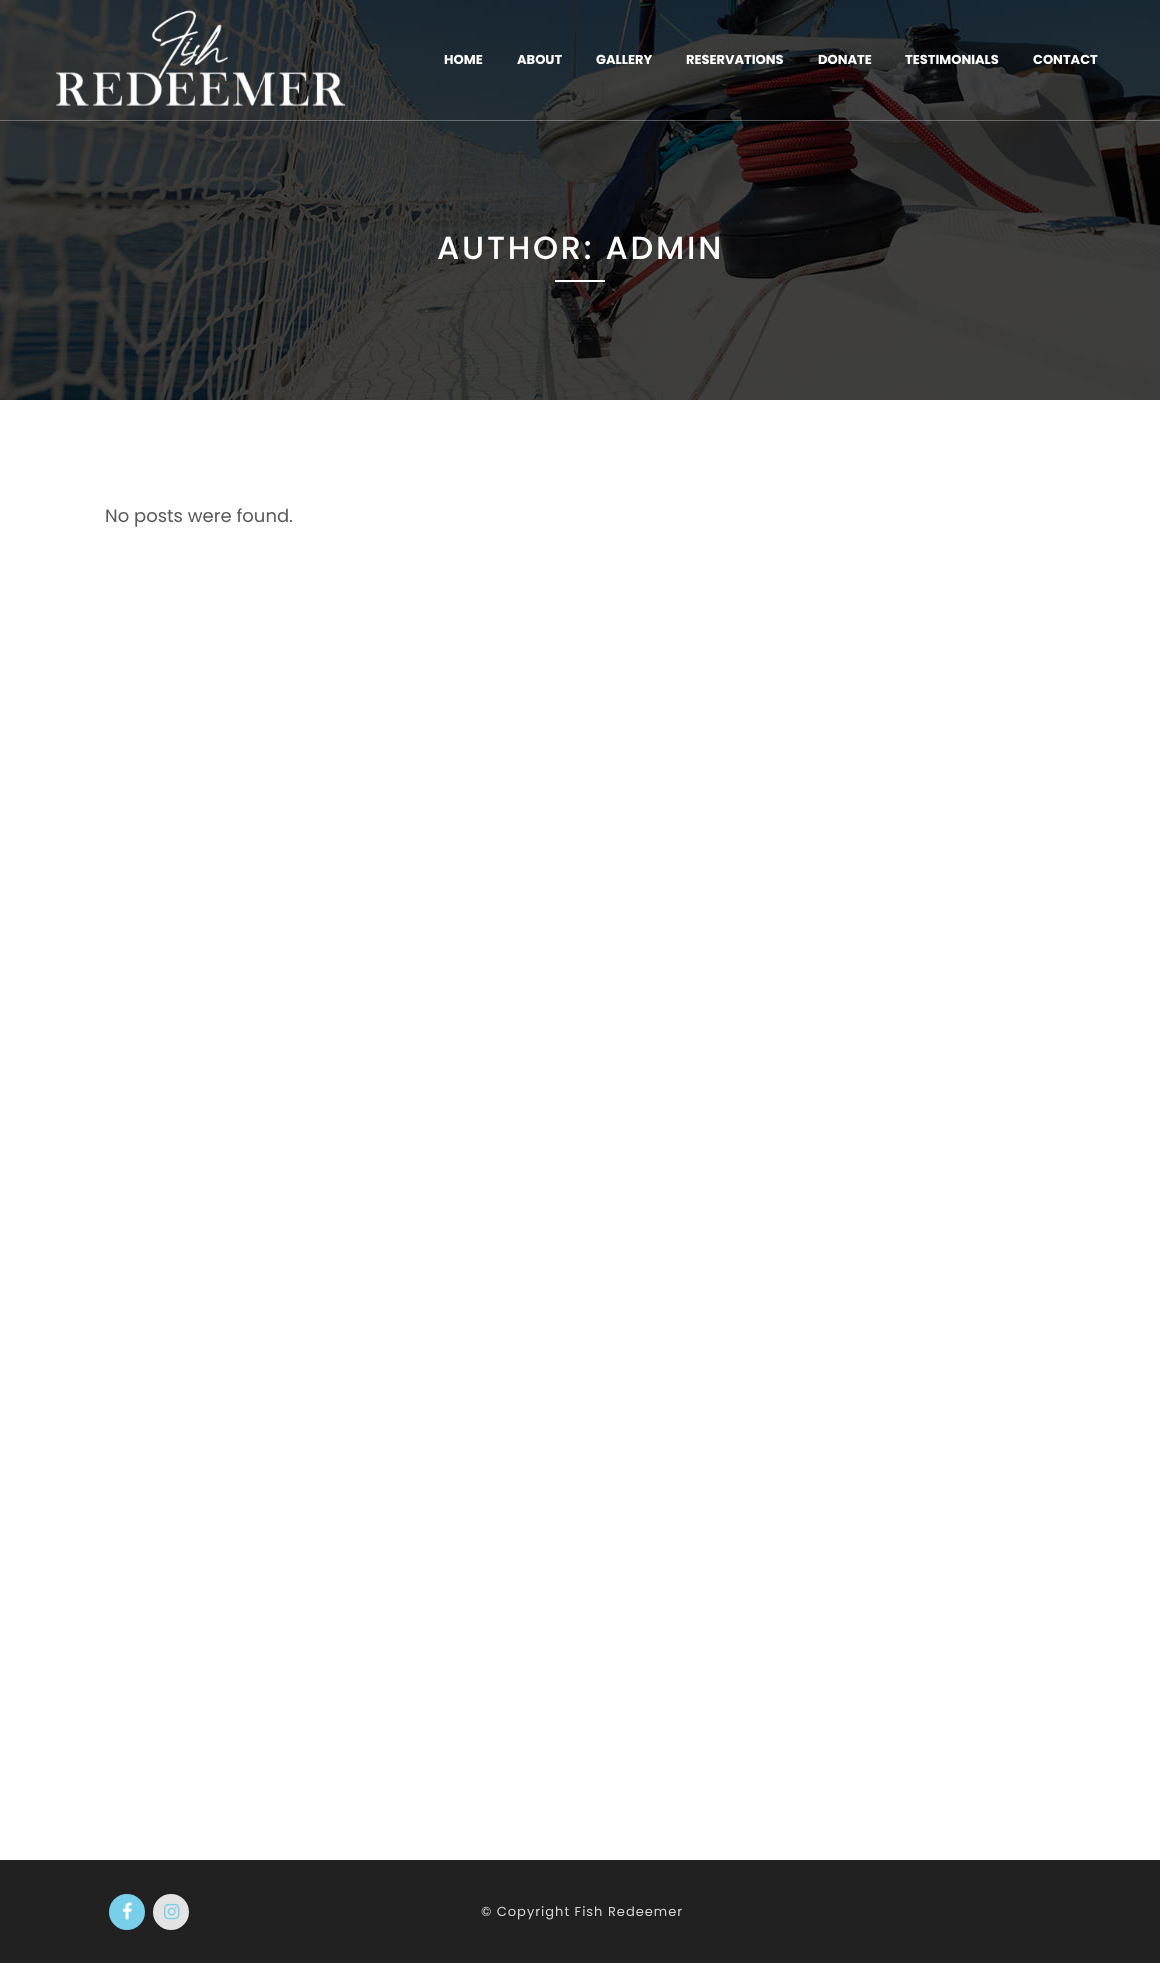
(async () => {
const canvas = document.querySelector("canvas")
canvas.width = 1160
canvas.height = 1963
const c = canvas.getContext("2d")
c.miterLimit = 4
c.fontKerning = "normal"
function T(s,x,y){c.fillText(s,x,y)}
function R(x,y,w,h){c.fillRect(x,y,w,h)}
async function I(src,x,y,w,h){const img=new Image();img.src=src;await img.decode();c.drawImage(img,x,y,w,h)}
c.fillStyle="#fff"
R(0,0,1160,1963)
await I("2.png",0,0,1160,400)
c.fillStyle="#ffffff4d"
R(0,120,1160,1)
await I("1.png",56,10,290,96)
c.font="bold 13px Poppins"
c.fillStyle="#fff"
T("HOME",444,64)
T("ABOUT",517,64)
T("GALLERY",596,64)
T("RESERVATIONS",686,64)
T("DONATE",818,64)
T("TESTIMONIALS",905,64)
T("CONTACT",1033,64)
c.letterSpacing="2.75px"
c.font="500 32px Poppins"
T("AUTHOR: ADMIN",437,259)
R(555,280,50,2)
c.letterSpacing="0px"
c.font="18px Poppins"
c.fillStyle="#595959"
T("No posts were found.",105,522)
c.fillStyle="#212121"
R(0,1860,1160,103)
c.fillStyle="#78cfea"
c.beginPath()
c.arc(127,1912,18,0,7)
c.fill()
await I("3.png",122,1902,10,18)
c.fillStyle="#e3e3e3"
c.beginPath()
c.arc(171,1912,18,0,7)
c.fill()
await I("4.png",164,1903,16,17)
c.letterSpacing="1px"
c.font="13px Poppins"
c.fillStyle="#d6d4d4"
T("© Copyright Fish Redeemer",481,1916)
})()
